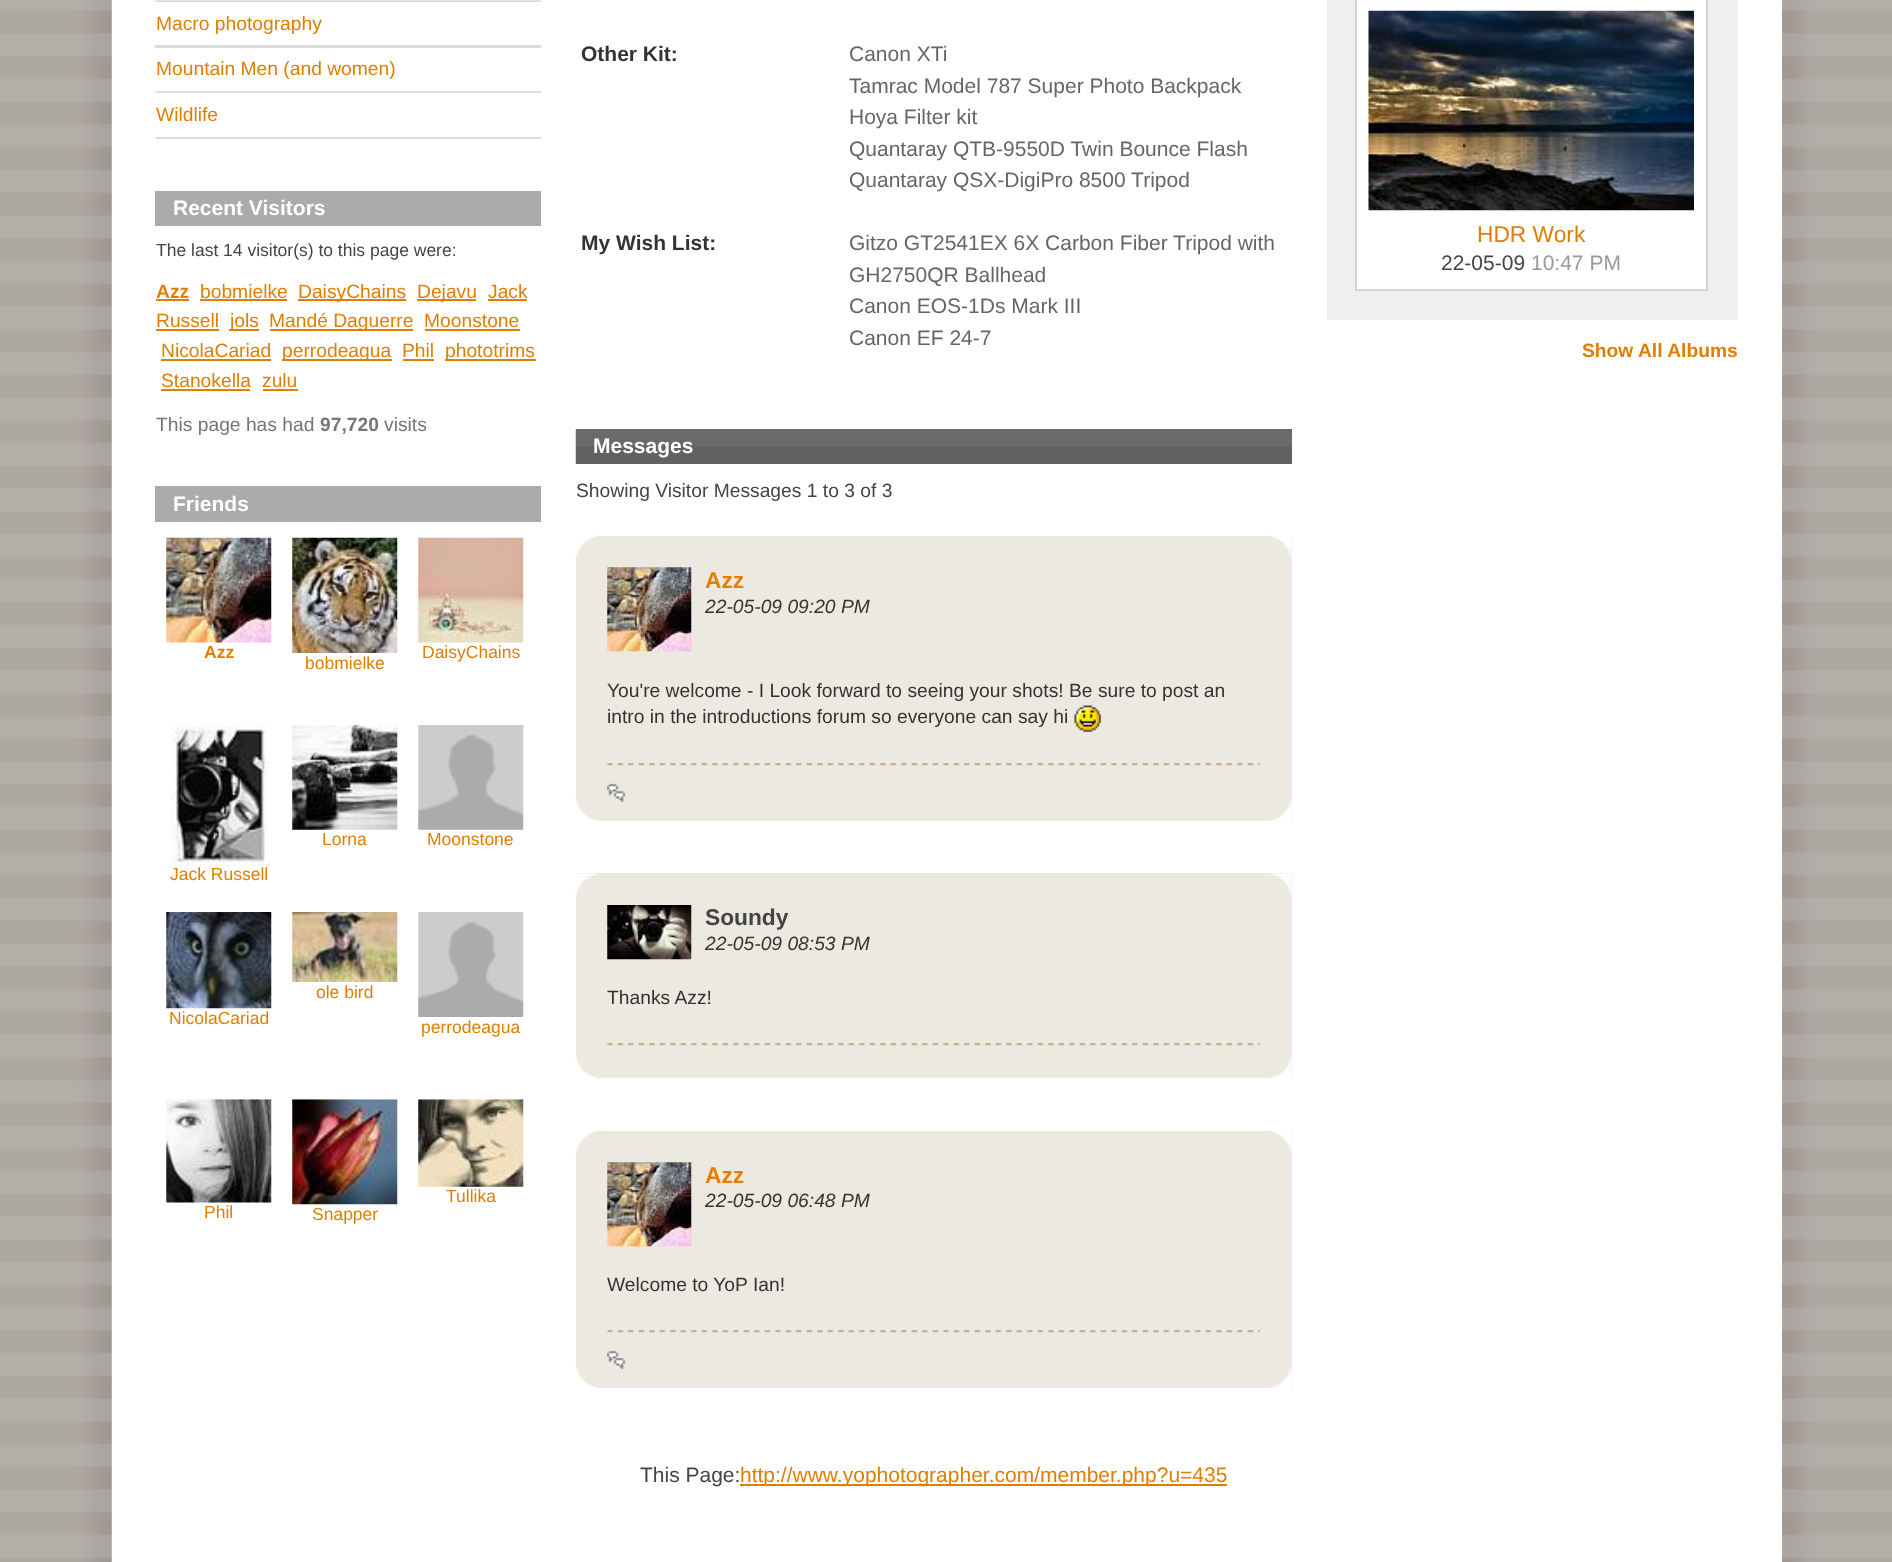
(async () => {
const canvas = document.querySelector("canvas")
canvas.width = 1892
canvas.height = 1562
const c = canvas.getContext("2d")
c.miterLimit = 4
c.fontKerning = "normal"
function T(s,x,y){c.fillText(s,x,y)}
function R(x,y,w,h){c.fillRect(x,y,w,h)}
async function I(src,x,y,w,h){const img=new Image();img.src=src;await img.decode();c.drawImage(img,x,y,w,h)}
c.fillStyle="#fff"
R(0,0,1892,1562)
await I("1.png",0,0,1892,1562)
R(112,0,1670,1562)
c.fillStyle="#dadada"
R(156,137,385,2)
await I("2.png",155,0,386,2)
c.font="19.25px Liberation Sans"
c.fillStyle="#e07e00"
T("Macro photography",156,30)
c.fillStyle="#dadada"
R(155,45,386,3)
c.fillStyle="#e07e00"
T("Mountain Men (and women)",156,75)
await I("2.png",155,91,386,2)
T("Wildlife",156,121)
c.fillStyle="#ababab"
R(155,191,386,35)
c.font="bold 21px Liberation Sans"
c.fillStyle="#fff"
T("Recent Visitors",173,215)
c.font="17.5px Liberation Sans"
c.fillStyle="#444"
T("The last 14 visitor(s) to this page were:",156,256)
c.font="bold 19.25px Liberation Sans"
c.fillStyle="#e87e00"
T("Azz",156,298)
c.fillStyle="#e07e00"
R(156,299,33,2)
c.font="19.25px Liberation Sans"
T("bobmielke",200,298)
R(200,299,87,2)
R(298,299,108,2)
T("DaisyChains",298,298)
R(417,299,59,2)
T("Dejavu",417,298)
T("Jack",488,298)
R(488,299,39,2)
T("Russell",156,327)
R(156,329,63,2)
R(229,329,30,2)
T("jols",230,327)
R(270,329,143,2)
T("Mandé Daguerre",269,327)
T("Moonstone",424,327)
R(425,329,95,2)
T("NicolaCariad",161,357)
R(161,359,110,2)
R(282,359,110,2)
T("perrodeagua",282,357)
T("Phil",402,357)
R(403,359,31,2)
R(445,359,91,2)
T("phototrims",445,357)
T("Stanokella",161,387)
R(161,389,89,2)
T("zulu",262,387)
R(263,389,35,2)
c.fillStyle="#767676"
T("This page has had",156,431)
c.font="bold 19.25px Liberation Sans"
T("97,720",320,431)
c.font="19.25px Liberation Sans"
T("visits",384,431)
c.fillStyle="#ababab"
R(155,486,386,36)
c.font="bold 21px Liberation Sans"
c.fillStyle="#fff"
T("Friends",173,511)
await I("3.png",166,537,106,106)
c.font="bold 17.5px Liberation Sans"
c.fillStyle="#e87e00"
T("Azz",204,658)
await I("4.png",292,537,106,116)
c.font="17.5px Liberation Sans"
c.fillStyle="#e07e00"
T("bobmielke",305,669)
await I("5.png",418,537,106,106)
T("DaisyChains",422,658)
await I("6.png",292,724,106,106)
T("Lorna",322,845)
await I("7.png",418,725,106,105)
T("Moonstone",427,845)
await I("8.png",171,725,97,140)
T("Jack Russell",170,880)
await I("9.png",292,912,106,70)
T("ole bird",316,998)
await I("10.png",166,912,106,97)
T("NicolaCariad",169,1024)
await I("11.png",418,912,106,105)
T("perrodeagua",421,1033)
await I("12.png",418,1099,106,88)
T("Tullika",446,1202)
await I("13.png",166,1099,106,104)
T("Phil",204,1218)
await I("14.png",292,1099,106,106)
T("Snapper",312,1220)
c.font="bold 21px Liberation Sans"
c.fillStyle="#333"
T("Other Kit:",581,61)
c.font="21px Liberation Sans"
c.fillStyle="#666"
T("Canon XTi",849,61)
T("Tamrac Model 787 Super Photo Backpack",849,93)
T("Hoya Filter kit",849,124)
T("Quantaray QTB-9550D Twin Bounce Flash",849,156)
T("Quantaray QSX-DigiPro 8500 Tripod",849,187)
c.font="bold 21px Liberation Sans"
c.fillStyle="#333"
T("My Wish List:",581,250)
c.font="21px Liberation Sans"
c.fillStyle="#666"
T("Gitzo GT2541EX 6X Carbon Fiber Tripod with",849,250)
T("GH2750QR Ballhead",849,282)
T("Canon EOS-1Ds Mark III",849,313)
T("Canon EF 24-7",849,345)
c.fillStyle="#6a6a6a"
R(1291,429,1,35)
await I("15.png",575,429,717,35)
c.font="bold 21px Liberation Sans"
c.fillStyle="#fff"
T("Messages",593,453)
c.font="19.25px Liberation Sans"
c.fillStyle="#444"
T("Showing Visitor Messages 1 to 3 of 3",576,497)
c.fillStyle="#ece9e1"
R(576,536,716,285)
await I("16.png",575,797,25,24)
await I("17.png",1270,799,22,22)
await I("18.png",575,535,27,25)
await I("19.png",1265,535,27,23)
await I("20.png",607,567,85,85)
c.font="bold 22.75px Liberation Sans"
c.fillStyle="#e87e00"
T("Azz",705,588)
c.font="italic 19.25px Liberation Sans"
c.fillStyle="#333"
T("22-05-09 09:20 PM",705,613)
c.font="19.25px Liberation Sans"
T("You're welcome - I Look forward to seeing your shots! Be sure to post an",607,697)
T("intro in the introductions forum so everyone can say hi",607,723)
await I("21.png",1074,705,27,27)
await I("22.png",607,763,653,3)
await I("23.png",607,783,19,20)
c.fillStyle="#ece9e1"
R(576,873,716,205)
await I("24.png",575,1054,27,25)
await I("25.png",1265,1056,27,23)
await I("26.png",575,873,25,25)
await I("27.png",1270,873,22,23)
await I("28.png",607,905,85,55)
c.font="bold 22.75px Liberation Sans"
c.fillStyle="#444"
T("Soundy",705,925)
c.font="italic 19.25px Liberation Sans"
c.fillStyle="#333"
T("22-05-09 08:53 PM",705,950)
c.font="19.25px Liberation Sans"
T("Thanks Azz!",607,1004)
await I("29.png",607,1043,653,3)
c.fillStyle="#ece9e1"
R(576,1131,716,257)
await I("16.png",575,1364,25,24)
await I("17.png",1270,1366,22,22)
await I("18.png",575,1130,27,25)
await I("19.png",1265,1130,27,23)
await I("20.png",607,1162,85,85)
c.font="bold 22.75px Liberation Sans"
c.fillStyle="#e87e00"
T("Azz",705,1183)
c.font="italic 19.25px Liberation Sans"
c.fillStyle="#333"
T("22-05-09 06:48 PM",705,1207)
c.font="19.25px Liberation Sans"
T("Welcome to YoP Ian!",607,1291)
await I("22.png",607,1330,653,3)
await I("23.png",607,1350,19,20)
c.font="21px Liberation Sans"
c.fillStyle="#444"
T("This Page:",640,1482)
c.fillStyle="#e07e00"
R(740,1484,487,2)
T("http://www.yophotographer.com/member.php?u=435",740,1482)
c.fillStyle="#efefef"
R(1327,0,411,320)
c.fillStyle="#fff"
c.beginPath()
c.rect(1356,-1,351,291)
c.fill()
c.strokeStyle="#d4d4d4"
c.lineWidth=2
c.stroke()
await I("30.png",1368,10,326,201)
c.font="22.75px Liberation Sans"
c.fillStyle="#e07e00"
T("HDR Work",1477,242)
c.font="21px Liberation Sans"
c.fillStyle="#444"
T("22-05-09",1441,270)
c.fillStyle="#999"
T("10:47 PM",1531,270)
c.font="bold 19.25px Liberation Sans"
c.fillStyle="#e07e00"
T("Show All Albums",1582,357)
})()
